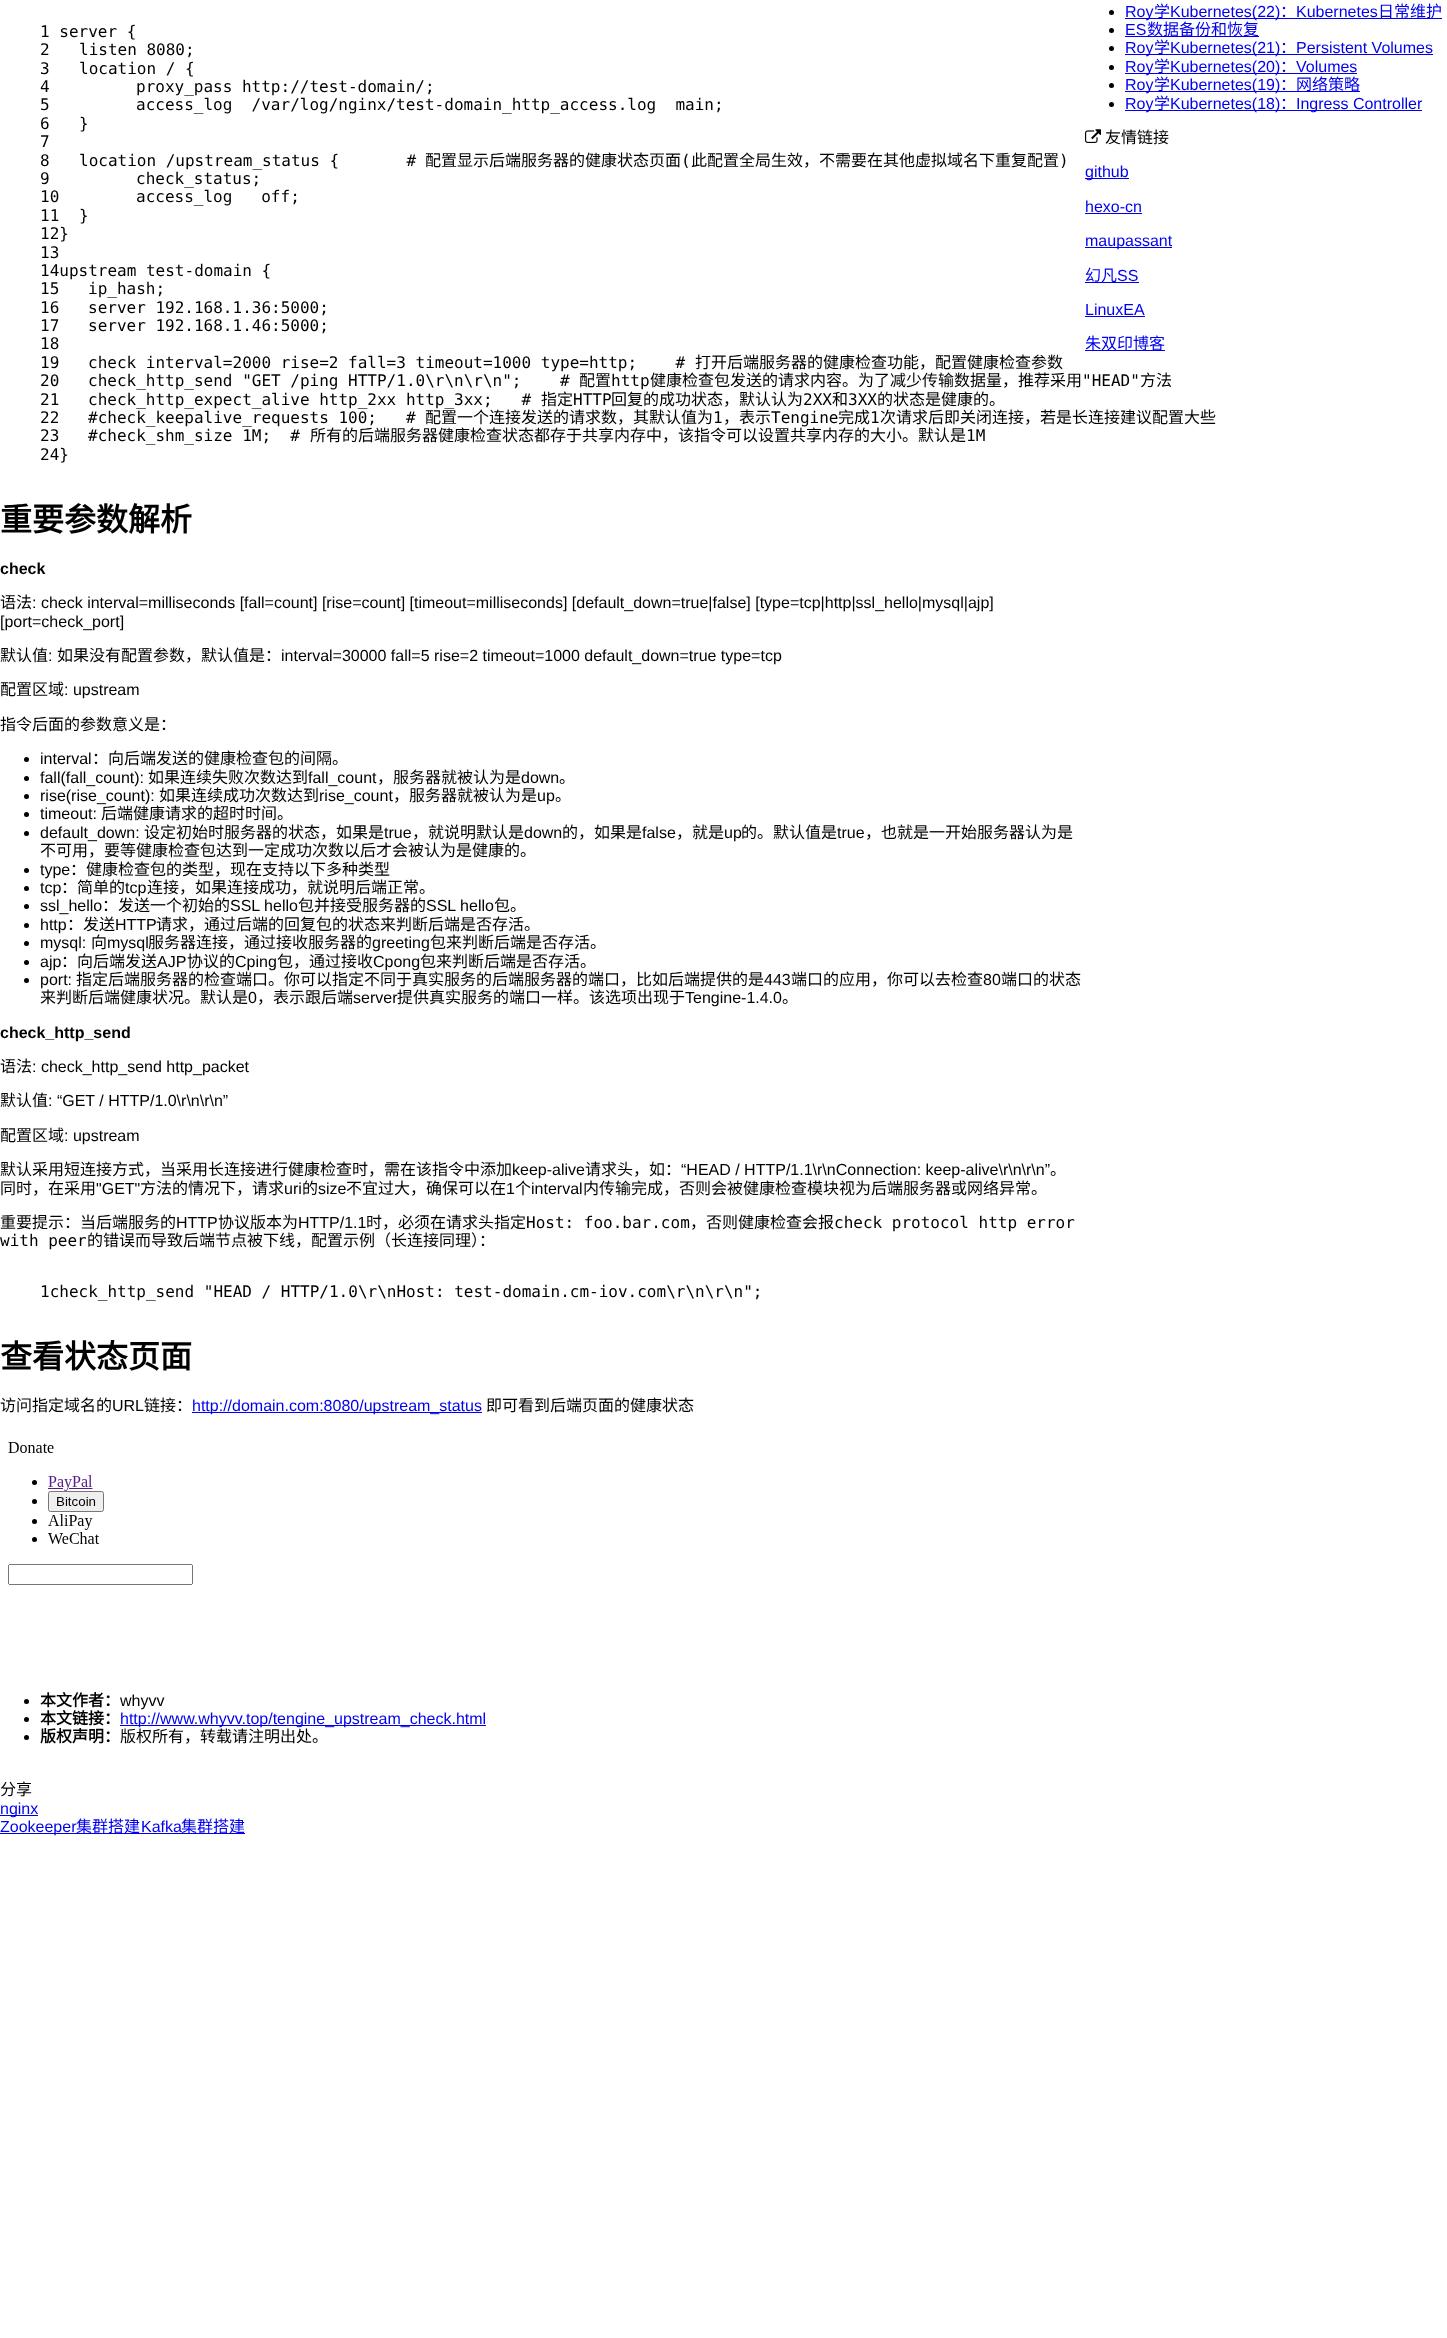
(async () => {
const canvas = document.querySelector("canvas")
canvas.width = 1447
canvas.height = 2338
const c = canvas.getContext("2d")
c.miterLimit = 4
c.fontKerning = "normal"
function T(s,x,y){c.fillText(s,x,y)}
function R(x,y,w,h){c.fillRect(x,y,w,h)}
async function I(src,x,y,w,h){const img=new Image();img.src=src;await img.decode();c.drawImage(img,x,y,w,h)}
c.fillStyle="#fff"
R(0,0,1447,2338)
c.font="16px DejaVu Sans Mono"
c.fillStyle="#000"
T("1 server {",40,37)
T("2",40,55)
T("3",40,74)
T("4",40,92)
T("5",40,110)
T("6",40,129)
T("7",40,147)
T("8",40,166)
T("9",40,184)
T("10",40,202)
T("11",40,221)
T("12}",40,239)
T("13",40,258)
T("14upstream test-domain {",40,276)
T("15",40,294)
T("16",40,313)
T("17",40,331)
T("18",40,349)
T("19",40,368)
T("20",40,386)
T("21",40,405)
T("22",40,423)
T("23",40,441)
T("24}",40,460)
T("listen 8080;",79,55)
T("location / {",79,74)
T("proxy_pass http://test-domain/;",136,92)
T("access_log  /var/log/nginx/test-domain_http_access.log  main;",136,110)
T("}",79,129)
T("location /upstream_status {       #",79,166)
c.font="16px Noto Sans CJK SC"
T("配置显示后端服务器的健康状态页面",425,166)
c.font="16px DejaVu Sans Mono"
T("(",681,166)
c.font="16px Noto Sans CJK SC"
T("此配置全局生效，不需要在其他虚拟域名下重复配置",691,166)
c.font="16px DejaVu Sans Mono"
T(")",1059,166)
T("check_status;",136,184)
T("access_log   off;",136,202)
T("}",79,221)
T("ip_hash;",88,294)
T("server 192.168.1.36:5000;",88,313)
T("server 192.168.1.46:5000;",88,331)
T("check interval=2000 rise=2 fall=3 timeout=1000 type=http;    #",88,368)
c.font="16px Noto Sans CJK SC"
T("打开后端服务器的健康检查功能，配置健康检查参数",695,368)
c.font="16px DejaVu Sans Mono"
T("check_http_send \"GET /ping HTTP/1.0\\r\\n\\r\\n\";    #",88,386)
c.font="16px Noto Sans CJK SC"
T("配置",579,386)
c.font="16px DejaVu Sans Mono"
T("http",611,386)
c.font="16px Noto Sans CJK SC"
T("健康检查包发送的请求内容。为了减少传输数据量，推荐采用",650,386)
c.font="16px DejaVu Sans Mono"
T("\"HEAD\"",1082,386)
c.font="16px Noto Sans CJK SC"
T("方法",1140,386)
c.font="16px DejaVu Sans Mono"
T("check_http_expect_alive http_2xx http_3xx;   #",88,405)
c.font="16px Noto Sans CJK SC"
T("指定",541,405)
c.font="16px DejaVu Sans Mono"
T("HTTP",573,405)
c.font="16px Noto Sans CJK SC"
T("回复的成功状态，默认认为",611,405)
c.font="16px DejaVu Sans Mono"
T("2XX",803,405)
c.font="16px Noto Sans CJK SC"
T("和",832,405)
c.font="16px DejaVu Sans Mono"
T("3XX",848,405)
c.font="16px Noto Sans CJK SC"
T("的状态是健康的。",877,405)
c.font="16px DejaVu Sans Mono"
T("#check_keepalive_requests 100;   #",88,423)
c.font="16px Noto Sans CJK SC"
T("配置一个连接发送的请求数，其默认值为",425,423)
c.font="16px DejaVu Sans Mono"
T("1",713,423)
c.font="16px Noto Sans CJK SC"
T("，表示",723,423)
c.font="16px DejaVu Sans Mono"
T("Tengine",771,423)
c.font="16px Noto Sans CJK SC"
T("完成",838,423)
c.font="16px DejaVu Sans Mono"
T("1",870,423)
c.font="16px Noto Sans CJK SC"
T("次请求后即关闭连接，若是长连接建议配置大些",880,423)
c.font="16px DejaVu Sans Mono"
T("#check_shm_size 1M;  #",88,441)
c.font="16px Noto Sans CJK SC"
T("所有的后端服务器健康检查状态都存于共享内存中，该指令可以设置共享内存的大小。默认是",310,441)
c.font="16px DejaVu Sans Mono"
T("1M",966,441)
c.font="bold 32px Noto Sans CJK SC"
T("重要参数解析",0,531)
c.font="bold 16px Liberation Sans"
T("check",0,574)
c.font="16px Noto Sans CJK SC"
T("语法",0,608)
c.font="16px Liberation Sans"
T(": check interval=milliseconds [fall=count] [rise=count] [timeout=milliseconds] [default_down=true|false] [type=tcp|http|ssl_hello|mysql|ajp]",32,608)
T("[port=check_port]",0,627)
c.font="16px Noto Sans CJK SC"
T("默认值",0,661)
c.font="16px Liberation Sans"
T(":",48,661)
c.font="16px Noto Sans CJK SC"
T("如果没有配置参数，默认值是：",57,661)
c.font="16px Liberation Sans"
T("interval=30000 fall=5 rise=2 timeout=1000 default_down=true type=tcp",281,661)
c.font="16px Noto Sans CJK SC"
T("配置区域",0,695)
c.font="16px Liberation Sans"
T(": upstream",64,695)
c.font="16px Noto Sans CJK SC"
T("指令后面的参数意义是：",0,730)
c.beginPath()
c.arc(26.5,759.5,2.5,0,7)
c.fill()
c.font="16px Liberation Sans"
T("interval",40,764)
c.font="16px Noto Sans CJK SC"
T("：向后端发送的健康检查包的间隔。",92,764)
c.beginPath()
c.arc(26.5,778.5,2.5,0,7)
c.fill()
c.font="16px Liberation Sans"
T("fall(fall_count):",40,783)
c.font="16px Noto Sans CJK SC"
T("如果连续失败次数达到",148,783)
c.font="16px Liberation Sans"
T("fall_count",308,783)
c.font="16px Noto Sans CJK SC"
T("，服务器就被认为是",377,783)
c.font="16px Liberation Sans"
T("down",521,783)
c.font="16px Noto Sans CJK SC"
T("。",559,783)
c.beginPath()
c.arc(26.5,796.5,2.5,0,7)
c.fill()
c.font="16px Liberation Sans"
T("rise(rise_count):",40,801)
c.font="16px Noto Sans CJK SC"
T("如果连续成功次数达到",159,801)
c.font="16px Liberation Sans"
T("rise_count",319,801)
c.font="16px Noto Sans CJK SC"
T("，服务器就被认为是",393,801)
c.font="16px Liberation Sans"
T("up",537,801)
c.font="16px Noto Sans CJK SC"
T("。",555,801)
c.beginPath()
c.arc(26.5,814.5,2.5,0,7)
c.fill()
c.font="16px Liberation Sans"
T("timeout:",40,819)
c.font="16px Noto Sans CJK SC"
T("后端健康请求的超时时间。",101,819)
c.beginPath()
c.arc(26.5,833.5,2.5,0,7)
c.fill()
c.font="16px Liberation Sans"
T("default_down:",40,838)
c.font="16px Noto Sans CJK SC"
T("设定初始时服务器的状态，如果是",144,838)
c.font="16px Liberation Sans"
T("true",384,838)
c.font="16px Noto Sans CJK SC"
T("，就说明默认是",412,838)
c.font="16px Liberation Sans"
T("down",524,838)
c.font="16px Noto Sans CJK SC"
T("的，如果是",562,838)
c.font="16px Liberation Sans"
T("false",642,838)
c.font="16px Noto Sans CJK SC"
T("，就是",676,838)
c.font="16px Liberation Sans"
T("up",724,838)
c.font="16px Noto Sans CJK SC"
T("的。默认值是",741,838)
c.font="16px Liberation Sans"
T("true",837,838)
c.font="16px Noto Sans CJK SC"
T("，也就是一开始服务器认为是",865,838)
T("不可用，要等健康检查包达到一定成功次数以后才会被认为是健康的。",40,856)
c.beginPath()
c.arc(26.5,870.5,2.5,0,7)
c.fill()
c.font="16px Liberation Sans"
T("type",40,875)
c.font="16px Noto Sans CJK SC"
T("：健康检查包的类型，现在支持以下多种类型",70,875)
c.beginPath()
c.arc(26.5,888.5,2.5,0,7)
c.fill()
c.font="16px Liberation Sans"
T("tcp",40,893)
c.font="16px Noto Sans CJK SC"
T("：简单的",61,893)
c.font="16px Liberation Sans"
T("tcp",125,893)
c.font="16px Noto Sans CJK SC"
T("连接，如果连接成功，就说明后端正常。",147,893)
c.beginPath()
c.arc(26.5,906.5,2.5,0,7)
c.fill()
c.font="16px Liberation Sans"
T("ssl_hello",40,911)
c.font="16px Noto Sans CJK SC"
T("：发送一个初始的",102,911)
c.font="16px Liberation Sans"
T("SSL hello",230,911)
c.font="16px Noto Sans CJK SC"
T("包并接受服务器的",298,911)
c.font="16px Liberation Sans"
T("SSL hello",426,911)
c.font="16px Noto Sans CJK SC"
T("包。",494,911)
c.beginPath()
c.arc(26.5,925.5,2.5,0,7)
c.fill()
c.font="16px Liberation Sans"
T("http",40,930)
c.font="16px Noto Sans CJK SC"
T("：发送",67,930)
c.font="16px Liberation Sans"
T("HTTP",115,930)
c.font="16px Noto Sans CJK SC"
T("请求，通过后端的回复包的状态来判断后端是否存活。",156,930)
c.beginPath()
c.arc(26.5,943.5,2.5,0,7)
c.fill()
c.font="16px Liberation Sans"
T("mysql:",40,948)
c.font="16px Noto Sans CJK SC"
T("向",91,948)
c.font="16px Liberation Sans"
T("mysql",107,948)
c.font="16px Noto Sans CJK SC"
T("服务器连接，通过接收服务器的",148,948)
c.font="16px Liberation Sans"
T("greeting",372,948)
c.font="16px Noto Sans CJK SC"
T("包来判断后端是否存活。",430,948)
c.beginPath()
c.arc(26.5,962.5,2.5,0,7)
c.fill()
c.font="16px Liberation Sans"
T("ajp",40,967)
c.font="16px Noto Sans CJK SC"
T("：向后端发送",61,967)
c.font="16px Liberation Sans"
T("AJP",157,967)
c.font="16px Noto Sans CJK SC"
T("协议的",187,967)
c.font="16px Liberation Sans"
T("Cping",235,967)
c.font="16px Noto Sans CJK SC"
T("包，通过接收",277,967)
c.font="16px Liberation Sans"
T("Cpong",373,967)
c.font="16px Noto Sans CJK SC"
T("包来判断后端是否存活。",420,967)
c.beginPath()
c.arc(26.5,980.5,2.5,0,7)
c.fill()
c.font="16px Liberation Sans"
T("port:",40,985)
c.font="16px Noto Sans CJK SC"
T("指定后端服务器的检查端口。你可以指定不同于真实服务的后端服务器的端口，比如后端提供的是",76,985)
c.font="16px Liberation Sans"
T("443",764,985)
c.font="16px Noto Sans CJK SC"
T("端口的应用，你可以去检查",791,985)
c.font="16px Liberation Sans"
T("80",983,985)
c.font="16px Noto Sans CJK SC"
T("端口的状态",1001,985)
T("来判断后端健康状况。默认是",40,1003)
c.font="16px Liberation Sans"
T("0",248,1003)
c.font="16px Noto Sans CJK SC"
T("，表示跟后端",257,1003)
c.font="16px Liberation Sans"
T("server",353,1003)
c.font="16px Noto Sans CJK SC"
T("提供真实服务的端口一样。该选项出现于",397,1003)
c.font="16px Liberation Sans"
T("Tengine-1.4.0",685,1003)
c.font="16px Noto Sans CJK SC"
T("。",782,1003)
c.font="bold 16px Liberation Sans"
T("check_http_send",0,1038)
c.font="16px Noto Sans CJK SC"
T("语法",0,1072)
c.font="16px Liberation Sans"
T(": check_http_send http_packet",32,1072)
c.font="16px Noto Sans CJK SC"
T("默认值",0,1106)
c.font="16px Liberation Sans"
T(": “GET / HTTP/1.0\\r\\n\\r\\n”",48,1106)
c.font="16px Noto Sans CJK SC"
T("配置区域",0,1141)
c.font="16px Liberation Sans"
T(": upstream",64,1141)
c.font="16px Noto Sans CJK SC"
T("默认采用短连接方式，当采用长连接进行健康检查时，需在该指令中添加",0,1175)
c.font="16px Liberation Sans"
T("keep-alive",512,1175)
c.font="16px Noto Sans CJK SC"
T("请求头，如：",585,1175)
c.font="16px Liberation Sans"
T("“HEAD / HTTP/1.1\\r\\nConnection: keep-alive\\r\\n\\r\\n”",681,1175)
c.font="16px Noto Sans CJK SC"
T("。",1050,1175)
T("同时，在采用",0,1194)
c.font="16px Liberation Sans"
T("\"GET\"",96,1194)
c.font="16px Noto Sans CJK SC"
T("方法的情况下，请求",140,1194)
c.font="16px Liberation Sans"
T("uri",284,1194)
c.font="16px Noto Sans CJK SC"
T("的",302,1194)
c.font="16px Liberation Sans"
T("size",318,1194)
c.font="16px Noto Sans CJK SC"
T("不宜过大，确保可以在",346,1194)
c.font="16px Liberation Sans"
T("1",506,1194)
c.font="16px Noto Sans CJK SC"
T("个",515,1194)
c.font="16px Liberation Sans"
T("interval",531,1194)
c.font="16px Noto Sans CJK SC"
T("内传输完成，否则会被健康检查模块视为后端服务器或网络异常。",583,1194)
T("重要提示：当后端服务的",0,1228)
c.font="16px Liberation Sans"
T("HTTP",176,1228)
c.font="16px Noto Sans CJK SC"
T("协议版本为",218,1228)
c.font="16px Liberation Sans"
T("HTTP/1.1",298,1228)
c.font="16px Noto Sans CJK SC"
T("时，必须在请求头指定",366,1228)
c.font="16px DejaVu Sans Mono"
T("Host: foo.bar.com",526,1228)
c.font="16px Noto Sans CJK SC"
T("，否则健康检查会报",690,1228)
c.font="16px DejaVu Sans Mono"
T("check protocol http error",834,1228)
T("with peer",0,1246)
c.font="16px Noto Sans CJK SC"
T("的错误而导致后端节点被下线，配置示例（长连接同理）：",87,1246)
c.font="16px DejaVu Sans Mono"
T("1check_http_send \"HEAD / HTTP/1.0\\r\\nHost: test-domain.cm-iov.com\\r\\n\\r\\n\";",40,1297)
c.font="bold 32px Noto Sans CJK SC"
T("查看状态页面",0,1368)
c.font="16px Noto Sans CJK SC"
T("访问指定域名的",0,1411)
c.font="16px Liberation Sans"
T("URL",112,1411)
c.font="16px Noto Sans CJK SC"
T("链接：",144,1411)
c.fillStyle="#00e"
R(192,1412,290,1)
c.font="16px Liberation Sans"
T("http://domain.com:8080/upstream_status",192,1411)
c.font="16px Noto Sans CJK SC"
c.fillStyle="#000"
T("即可看到后端页面的健康状态",486,1411)
await I("1.png",8,1442,185,143)
c.beginPath()
c.arc(26.5,1701.5,2.5,0,7)
c.fill()
c.font="bold 16px Noto Sans CJK SC"
T("本文作者：",40,1706)
c.font="16px Liberation Sans"
T("whyvv",120,1706)
c.beginPath()
c.arc(26.5,1719.5,2.5,0,7)
c.fill()
c.font="bold 16px Noto Sans CJK SC"
T("本文链接：",40,1724)
c.fillStyle="#00e"
R(120,1725,366,1)
c.font="16px Liberation Sans"
T("http://www.whyvv.top/tengine_upstream_check.html",120,1724)
c.fillStyle="#000"
c.beginPath()
c.arc(26.5,1737.5,2.5,0,7)
c.fill()
c.font="bold 16px Noto Sans CJK SC"
T("版权声明：",40,1742)
c.font="16px Noto Sans CJK SC"
T("版权所有，转载请注明出处。",120,1742)
T("分享",0,1795)
c.fillStyle="#00e"
R(0,1815,38,1)
c.font="16px Liberation Sans"
T("nginx",0,1814)
R(0,1833,245,1)
T("Zookeeper",0,1832)
c.font="16px Noto Sans CJK SC"
T("集群搭建",76,1832)
c.font="16px Liberation Sans"
T("Kafka",141,1832)
c.font="16px Noto Sans CJK SC"
T("集群搭建",181,1832)
c.fillStyle="#000"
c.beginPath()
c.arc(1111.5,12.5,2.5,0,7)
c.fill()
c.fillStyle="#00e"
R(1125,18,317,1)
c.font="16px Liberation Sans"
T("Roy",1125,17)
c.font="16px Noto Sans CJK SC"
T("学",1154,17)
c.font="16px Liberation Sans"
T("Kubernetes(22)",1170,17)
c.font="16px Noto Sans CJK SC"
T("：",1280,17)
c.font="16px Liberation Sans"
T("Kubernetes",1296,17)
c.font="16px Noto Sans CJK SC"
T("日常维护",1378,17)
c.fillStyle="#000"
c.beginPath()
c.arc(1111.5,30.5,2.5,0,7)
c.fill()
c.font="16px Liberation Sans"
c.fillStyle="#00e"
T("ES",1125,35)
R(1125,36,134,1)
c.font="16px Noto Sans CJK SC"
T("数据备份和恢复",1147,35)
c.fillStyle="#000"
c.beginPath()
c.arc(1111.5,48.5,2.5,0,7)
c.fill()
c.fillStyle="#00e"
R(1125,54,308,1)
c.font="16px Liberation Sans"
T("Roy",1125,53)
c.font="16px Noto Sans CJK SC"
T("学",1154,53)
c.font="16px Liberation Sans"
T("Kubernetes(21)",1170,53)
c.font="16px Noto Sans CJK SC"
T("：",1280,53)
c.font="16px Liberation Sans"
T("Persistent Volumes",1296,53)
c.fillStyle="#000"
c.beginPath()
c.arc(1111.5,67.5,2.5,0,7)
c.fill()
c.fillStyle="#00e"
R(1125,73,232,1)
T("Roy",1125,72)
c.font="16px Noto Sans CJK SC"
T("学",1154,72)
c.font="16px Liberation Sans"
T("Kubernetes(20)",1170,72)
c.font="16px Noto Sans CJK SC"
T("：",1280,72)
c.font="16px Liberation Sans"
T("Volumes",1296,72)
c.fillStyle="#000"
c.beginPath()
c.arc(1111.5,85.5,2.5,0,7)
c.fill()
c.fillStyle="#00e"
R(1125,91,235,1)
T("Roy",1125,90)
c.font="16px Noto Sans CJK SC"
T("学",1154,90)
c.font="16px Liberation Sans"
T("Kubernetes(19)",1170,90)
c.font="16px Noto Sans CJK SC"
T("：网络策略",1280,90)
c.fillStyle="#000"
c.beginPath()
c.arc(1111.5,104.5,2.5,0,7)
c.fill()
c.fillStyle="#00e"
R(1125,110,297,1)
c.font="16px Liberation Sans"
T("Roy",1125,109)
c.font="16px Noto Sans CJK SC"
T("学",1154,109)
c.font="16px Liberation Sans"
T("Kubernetes(18)",1170,109)
c.font="16px Noto Sans CJK SC"
T("：",1280,109)
c.font="16px Liberation Sans"
T("Ingress Controller",1296,109)
await I("2.png",1085,129,16,14)
c.font="16px Noto Sans CJK SC"
c.fillStyle="#000"
T("友情链接",1105,143)
c.fillStyle="#00e"
R(1085,178,44,1)
c.font="16px Liberation Sans"
T("github",1085,177)
T("hexo-cn",1085,212)
R(1085,213,57,1)
R(1085,247,87,1)
T("maupassant",1085,246)
R(1085,282,54,1)
c.font="16px Noto Sans CJK SC"
T("幻凡",1085,281)
c.font="16px Liberation Sans"
T("SS",1117,281)
T("LinuxEA",1085,315)
R(1085,316,60,1)
R(1085,350,80,1)
c.font="16px Noto Sans CJK SC"
T("朱双印博客",1085,349)
})()
